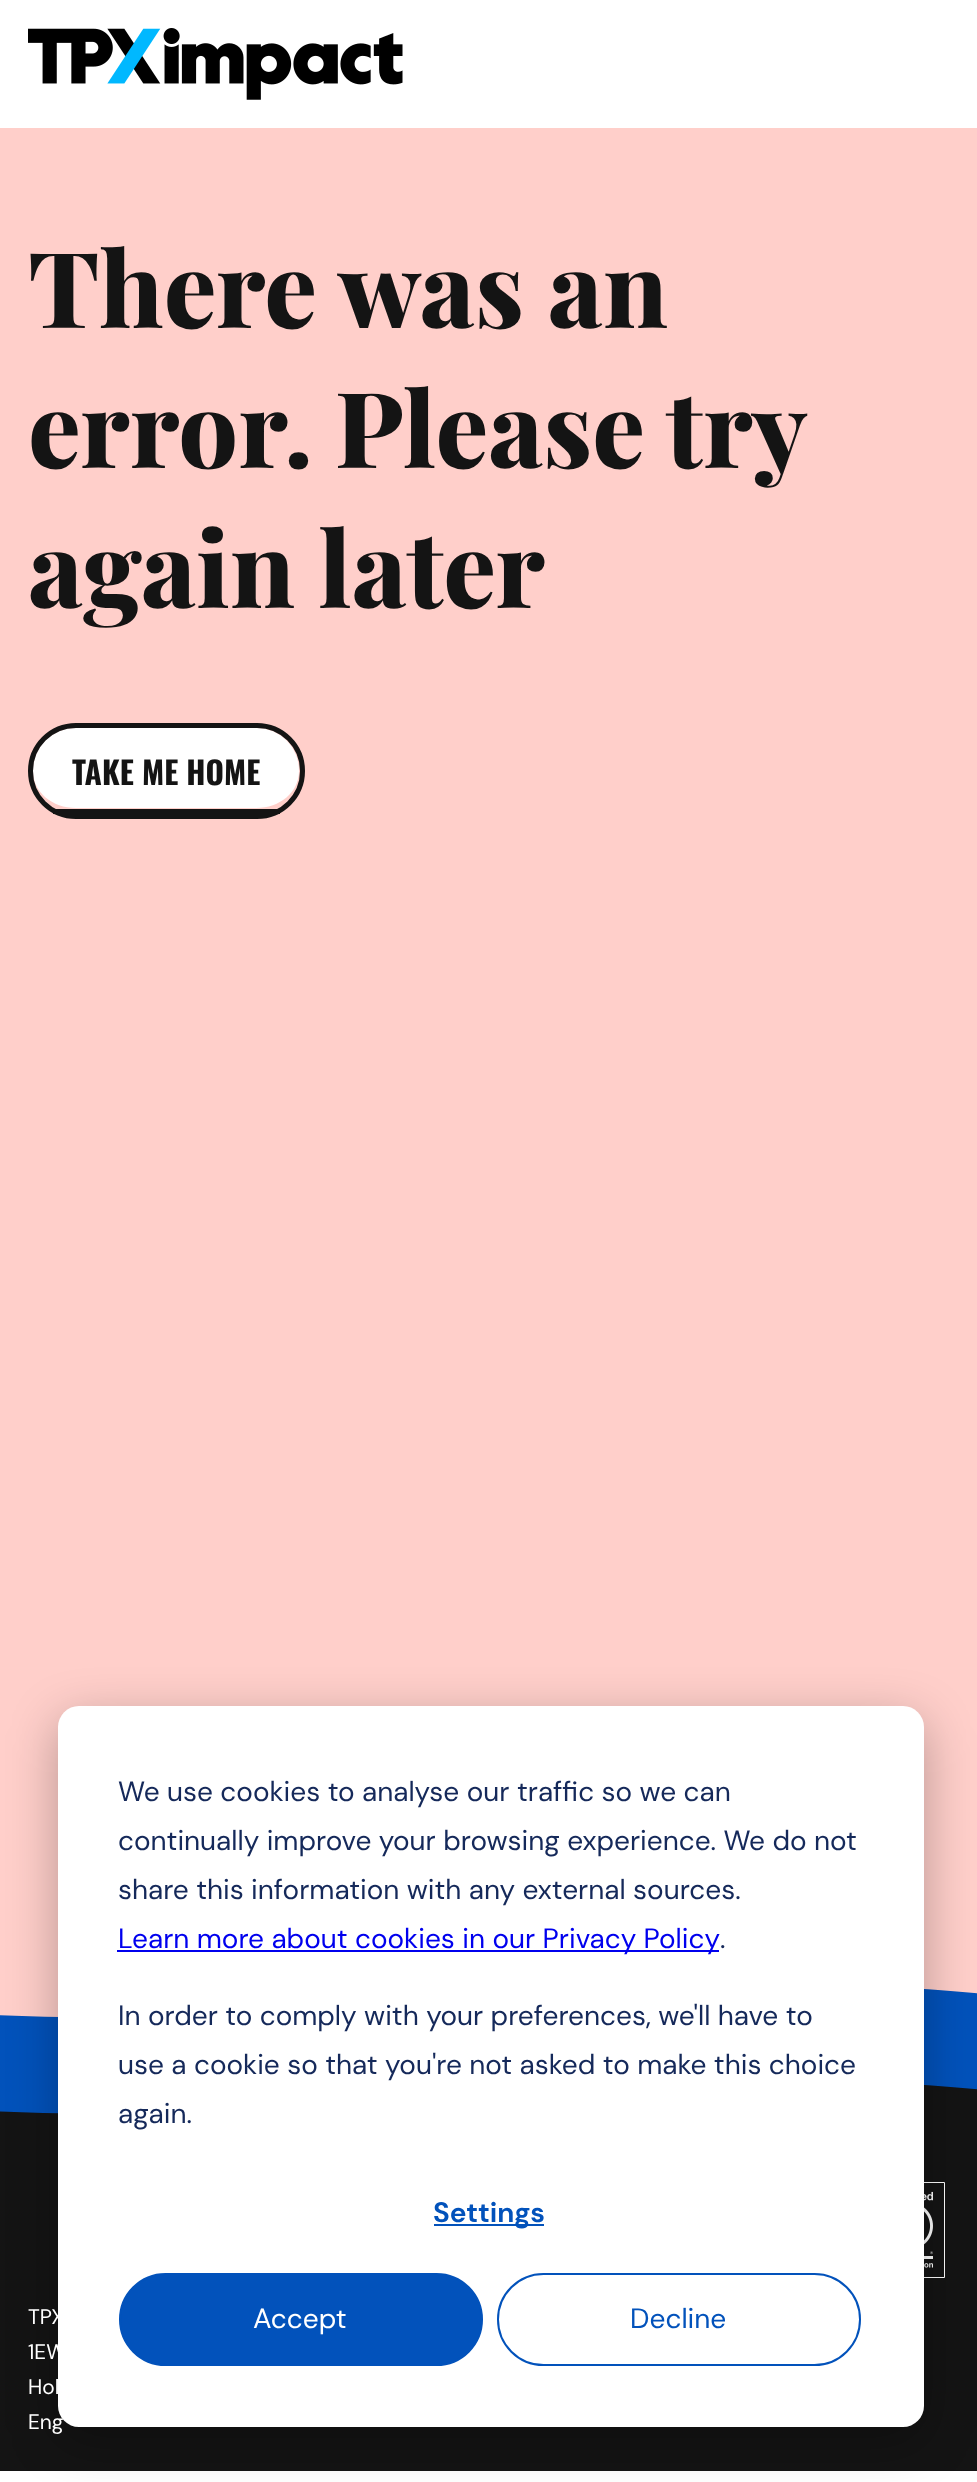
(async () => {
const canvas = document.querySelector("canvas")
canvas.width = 977
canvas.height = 2482
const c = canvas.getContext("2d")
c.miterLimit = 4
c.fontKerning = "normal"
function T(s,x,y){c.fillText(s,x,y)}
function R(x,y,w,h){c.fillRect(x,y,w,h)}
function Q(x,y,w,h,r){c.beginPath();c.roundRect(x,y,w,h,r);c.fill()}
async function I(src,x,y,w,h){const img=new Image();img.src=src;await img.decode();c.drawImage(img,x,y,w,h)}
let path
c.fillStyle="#fff"
R(0,0,977,2482)
await I("1.png",28,28,375,72)
c.fillStyle="#ffcfca"
R(0,128,977,1889)
c.font="800 105px Playfair Display"
c.fillStyle="#141414"
T("There was an",28,328)
c.wordSpacing="-2px"
T("error. Please try",28,468)
c.wordSpacing="0px"
T("again later",28,608)
c.fillStyle="#fff"
path = new Path2D("M76 728h180c24 0 43 19 43 43c0 21-19 37-43 37h-180c-24 0-43-16-43-37c0-24 19-43 43-43z")
c.fill(path)
c.beginPath()
c.roundRect(30.5,725.5,272,91,45.5)
c.strokeStyle="#141414"
c.lineWidth=5
c.stroke()
c.fillStyle="#141414"
R(53,809,227,5)
c.font="bold 31.5px Oswald"
T("TAKE ME HOME",72,785)
c.fillStyle="#0252bb"
R(0,2039,977,75)
c.save()
c.beginPath()
c.rect(0,1969,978,70)
c.clip()
path = new Path2D("M384 2004c-211 25-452 10-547 0l-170 466l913 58l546-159c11-114 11-347-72-365c-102-22-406-31-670 0z")
c.fill(path)
c.restore()
c.save()
c.beginPath()
c.rect(0,2065,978,70)
c.clip()
c.fillStyle="#141414"
path = new Path2D("M384 2100c-211 25-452 11-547 0l-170 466l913 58l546-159c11-114 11-347-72-365c-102-22-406-31-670 0z")
c.fill(path)
c.restore()
c.fillStyle="#141414"
R(0,2135,977,336)
await I("2.png",924,2182,21,96)
c.fillStyle="#00000047"
c.filter="blur(24.5px)"
c.beginPath()
c.roundRect(58,1720,866,721,21)
c.fill()
c.filter="none"
c.fillStyle="#fff"
Q(58,1706,866,721,21)
c.font="28px DM Sans"
c.fillStyle="#15295a"
T("We use cookies to analyse our traffic so we can",118,1801)
T("continually improve your browsing experience. We do not",118,1850)
T("share this information with any external sources.",118,1899)
c.fillStyle="#00e"
R(117,1950,602,2)
T("Learn more about cookies in our Privacy Policy",118,1948)
c.fillStyle="#15295a"
T(".",720,1948)
T("In order to comply with your preferences, we'll have to",118,2025)
T("use a cookie so that you're not asked to make this choice",118,2074)
T("again.",118,2123)
c.fillStyle="#0252bb"
R(434,2224,110,2)
c.font="bold 28px DM Sans"
T("Settings",433,2222)
c.beginPath()
c.roundRect(120,2274,362,91,45.5)
c.fill()
c.strokeStyle="#0252bb"
c.lineWidth=2
c.stroke()
c.font="28px DM Sans"
c.fillStyle="#fff"
T("Accept",253,2328)
c.beginPath()
c.roundRect(498,2274,362,91,45.5)
c.stroke()
c.fillStyle="#0252bb"
T("Decline",630,2328)
c.font="21px DM Sans"
c.fillStyle="#fff"
T("TPX",28,2324)
T("1EW",28,2359)
T("Hol",28,2394)
T("Eng",28,2429)
})()
